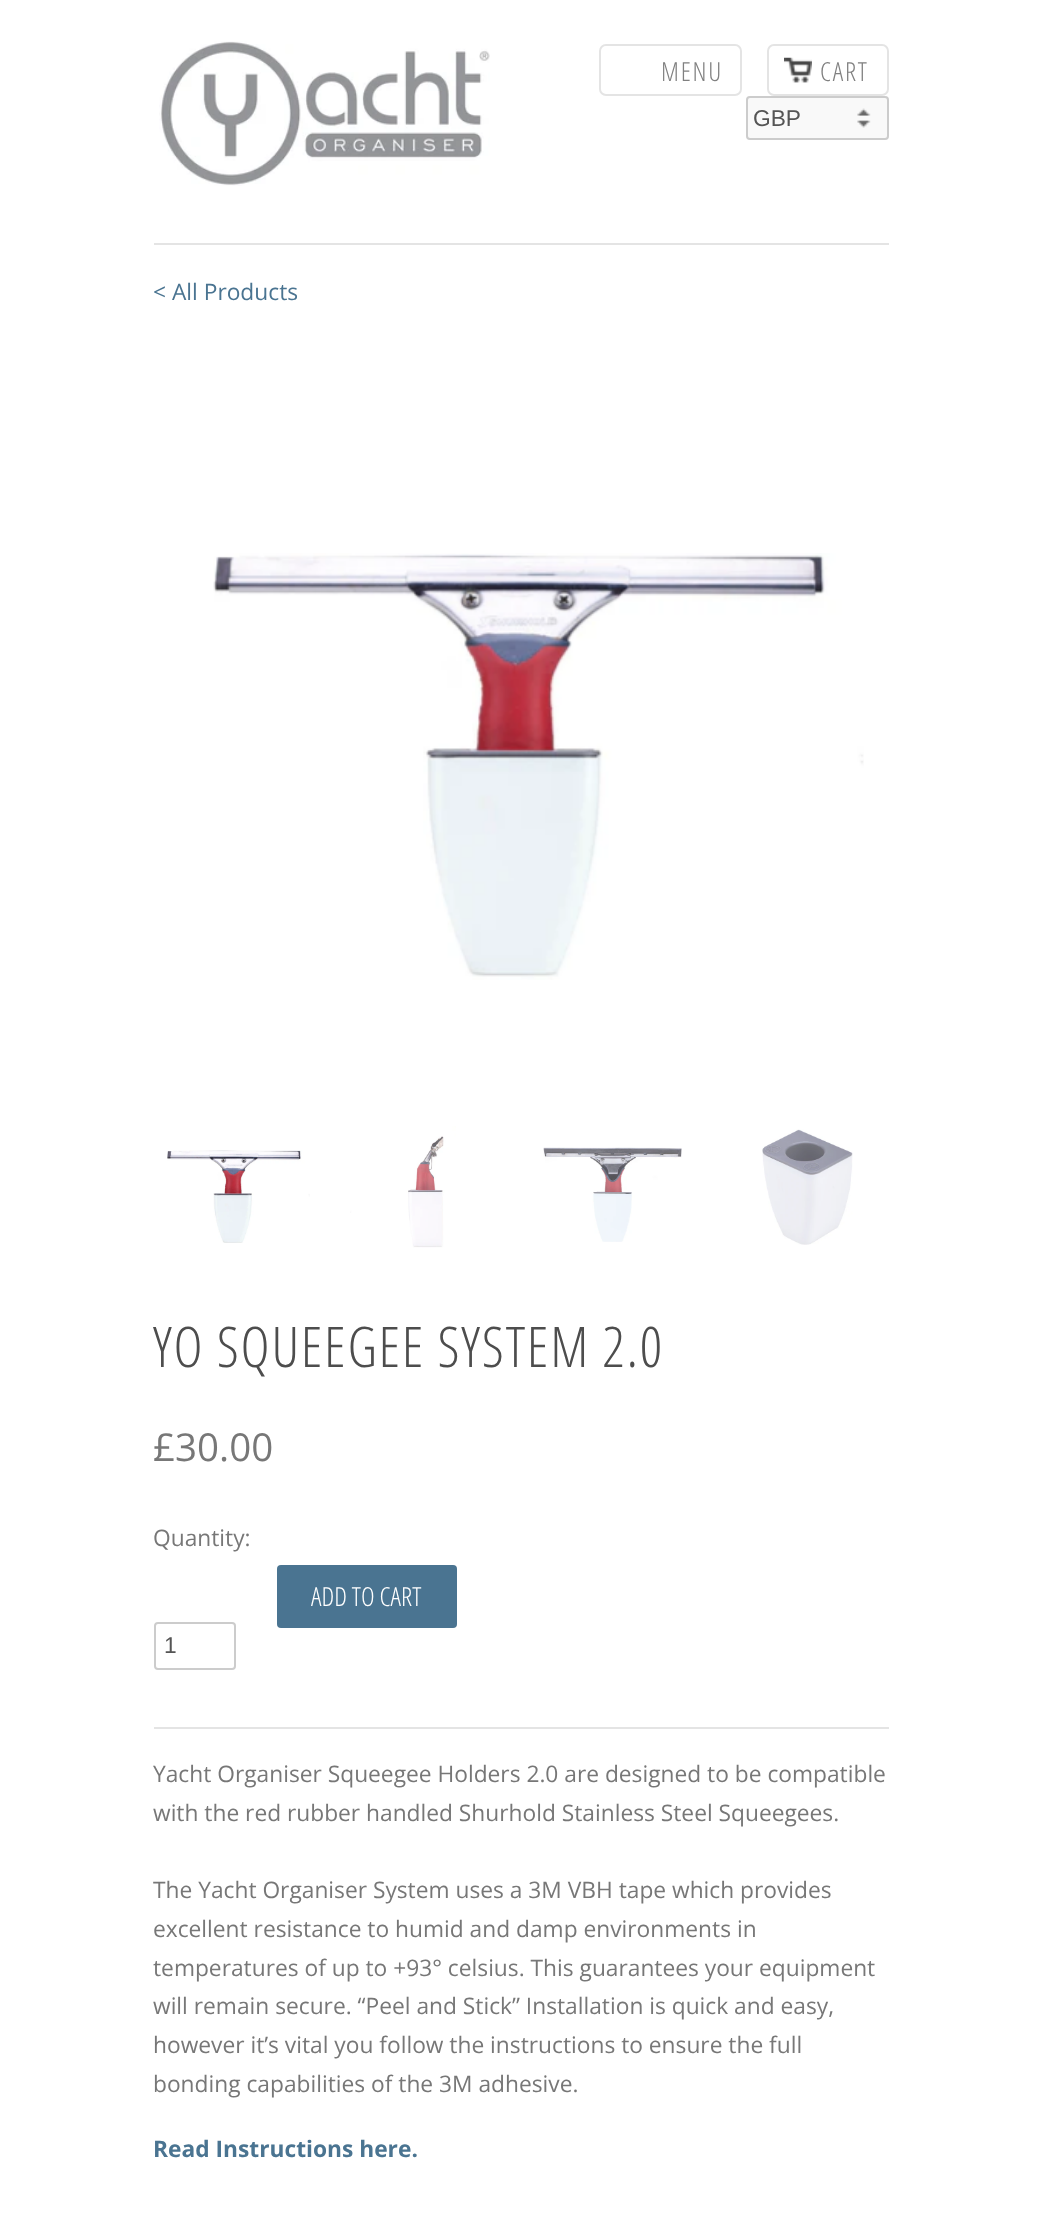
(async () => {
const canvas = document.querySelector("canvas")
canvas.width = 1041
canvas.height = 2217
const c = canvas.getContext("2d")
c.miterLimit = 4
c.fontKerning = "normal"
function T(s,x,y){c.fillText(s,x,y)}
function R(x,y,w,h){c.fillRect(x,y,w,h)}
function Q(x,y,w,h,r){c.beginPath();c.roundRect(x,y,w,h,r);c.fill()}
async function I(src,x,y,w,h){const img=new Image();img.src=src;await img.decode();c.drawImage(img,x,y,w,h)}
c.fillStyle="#fff"
R(0,0,1041,2217)
await I("1.png",159,41,331,145)
c.beginPath()
c.roundRect(600,45,141,50,6)
c.strokeStyle="#e4e4e4"
c.lineWidth=2
c.stroke()
c.letterSpacing="1.75px"
c.font="300 26.25px Open Sans Condensed"
c.fillStyle="#808080"
T("MENU",661,81)
await I("2.png",784,57,28,26)
c.beginPath()
c.roundRect(768,45,120,50,6)
c.stroke()
T("CART",820,81)
c.fillStyle="#f9f9f9"
Q(746,96,143,44,4)
await I("3.png",857,108,14,20)
c.beginPath()
c.roundRect(747,97,141,42,3)
c.strokeStyle="#ccc"
c.stroke()
c.letterSpacing="0px"
c.font="22.75px Liberation Sans"
c.fillStyle="#555"
T("GBP",753,126)
c.fillStyle="#e4e4e4"
R(154,243,735,2)
c.font="22.75px Open Sans"
c.fillStyle="#4a7491"
T("< All Products",153,300)
await I("4.png",213,553,651,427)
await I("5.png",167,1150,143,93)
await I("6.png",350,1126,106,122)
await I("7.png",543,1147,139,95)
await I("8.png",762,1129,91,116)
c.letterSpacing="1.75px"
c.font="300 56px Open Sans Condensed"
c.fillStyle="#4d4d4d"
T("YO SQUEEGEE SYSTEM 2.0",153,1367)
c.letterSpacing="0px"
c.font="38.5px Open Sans"
c.fillStyle="#777"
T("£30.00",153,1461)
c.font="22.75px Open Sans"
T("Quantity:",153,1546)
c.fillStyle="#4a7491"
Q(277,1565,180,63,4)
c.font="300 26.25px Open Sans Condensed"
c.fillStyle="#fff"
T("ADD TO CART",311,1606)
c.beginPath()
c.roundRect(155,1623,80,46,3)
c.stroke()
c.font="22.75px Liberation Sans"
c.fillStyle="#555"
T("1",164,1653)
c.fillStyle="#e4e4e4"
R(154,1727,735,2)
c.font="22.75px Open Sans"
c.fillStyle="#777"
T("Yacht Organiser Squeegee Holders 2.0 are designed to be compatible",153,1782)
T("with the red rubber handled Shurhold Stainless Steel Squeegees.",153,1821)
T("The Yacht Organiser System uses a 3M VBH tape which provides",153,1898)
T("excellent resistance to humid and damp environments in",153,1937)
T("temperatures of up to +93° celsius. This guarantees your equipment",153,1976)
T("will remain secure. “Peel and Stick” Installation is quick and easy,",153,2014)
T("however it’s vital you follow the instructions to ensure the full",153,2053)
T("bonding capabilities of the 3M adhesive.",153,2092)
c.font="bold 22.75px Open Sans"
c.fillStyle="#4a7491"
T("Read Instructions here.",153,2157)
})()
